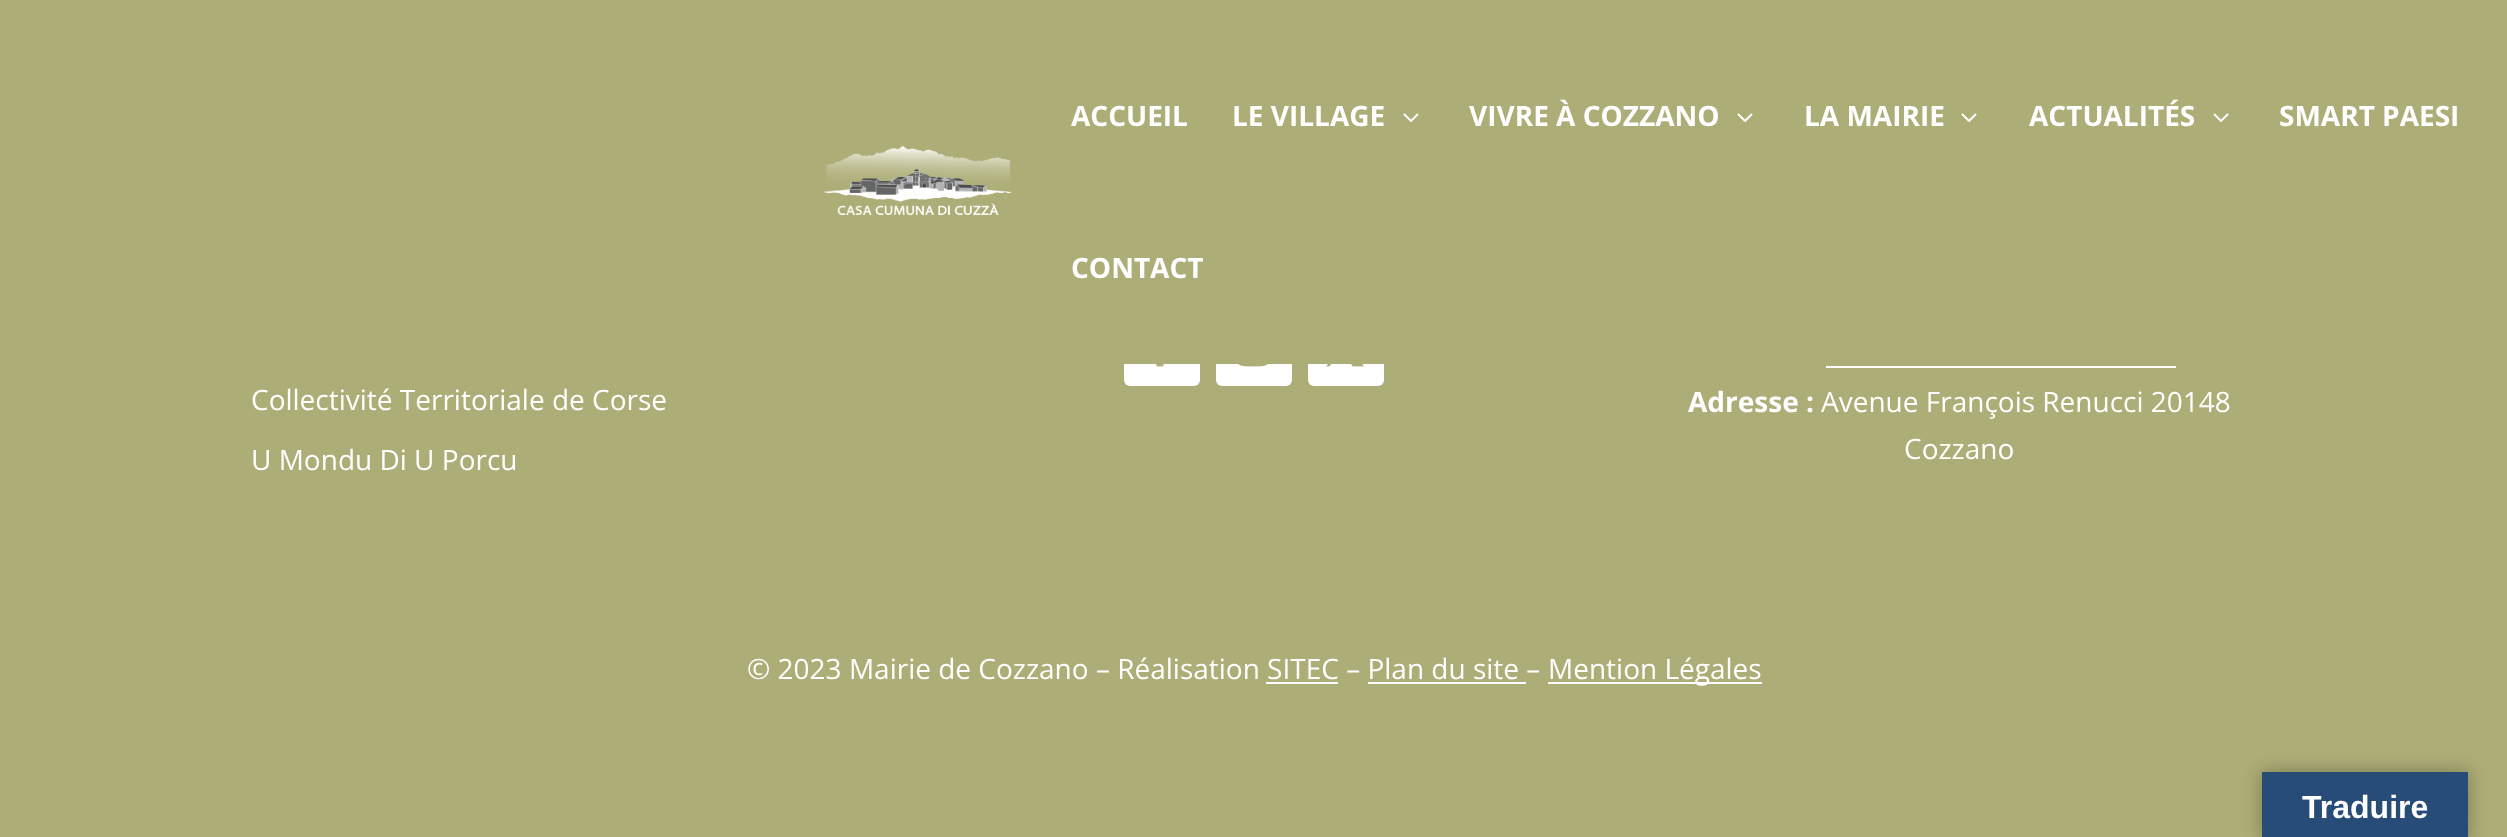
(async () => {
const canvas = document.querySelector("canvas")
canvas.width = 2507
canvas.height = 837
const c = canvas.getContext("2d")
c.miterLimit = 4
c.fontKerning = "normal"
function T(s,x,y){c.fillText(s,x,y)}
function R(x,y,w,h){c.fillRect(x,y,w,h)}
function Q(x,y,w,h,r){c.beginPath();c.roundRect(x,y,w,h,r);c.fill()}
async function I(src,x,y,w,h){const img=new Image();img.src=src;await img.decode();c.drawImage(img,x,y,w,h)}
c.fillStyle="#adad77"
R(0,0,2507,837)
c.fillStyle="#fff"
Q(1124,310,76,76,6)
Q(1216,310,76,76,6)
Q(1308,310,76,76,6)
c.fillStyle="#adad77"
R(1124,310,260,54)
await I("1.png",824,146,188,69)
c.font="bold 28px Open Sans"
c.fillStyle="#fff"
T("ACCUEIL",1071,126)
T("LE VILLAGE",1232,126)
await I("2.png",1403,113,16,9)
T("VIVRE À COZZANO",1469,126)
await I("2.png",1737,113,16,9)
T("LA MAIRIE",1804,126)
await I("2.png",1961,113,16,9)
T("ACTUALITÉS",2029,126)
await I("2.png",2213,113,16,9)
T("SMART PAESI",2279,126)
T("CONTACT",1071,278)
await I("3.png",1156,364,8,3)
await I("4.png",1238,364,30,3)
await I("5.png",1326,364,38,3)
c.font="28px Open Sans"
T("Collectivité Territoriale de Corse",251,410)
T("U Mondu Di U Porcu",251,470)
R(1826,366,350,2)
c.font="bold 28px Open Sans"
T("Adresse :",1688,412)
c.font="28px Open Sans"
T("Avenue François Renucci 20148",1821,412)
T("Cozzano",1904,459)
T("© 2023 Mairie de Cozzano – Réalisation SITEC – Plan du site –",747,679)
R(1548,682,214,2)
T("Mention Légales",1548,679)
R(1266,682,72,2)
R(1368,682,158,2)
c.fillStyle="#0000004d"
c.filter="blur(9px)"
c.beginPath()
c.rect(2262,772,206,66)
c.fill()
c.filter="none"
c.fillStyle="#274c77"
R(2262,772,206,65)
c.font="bold 32px Liberation Sans"
c.fillStyle="#fff"
T("Traduire",2302,818)
})()
